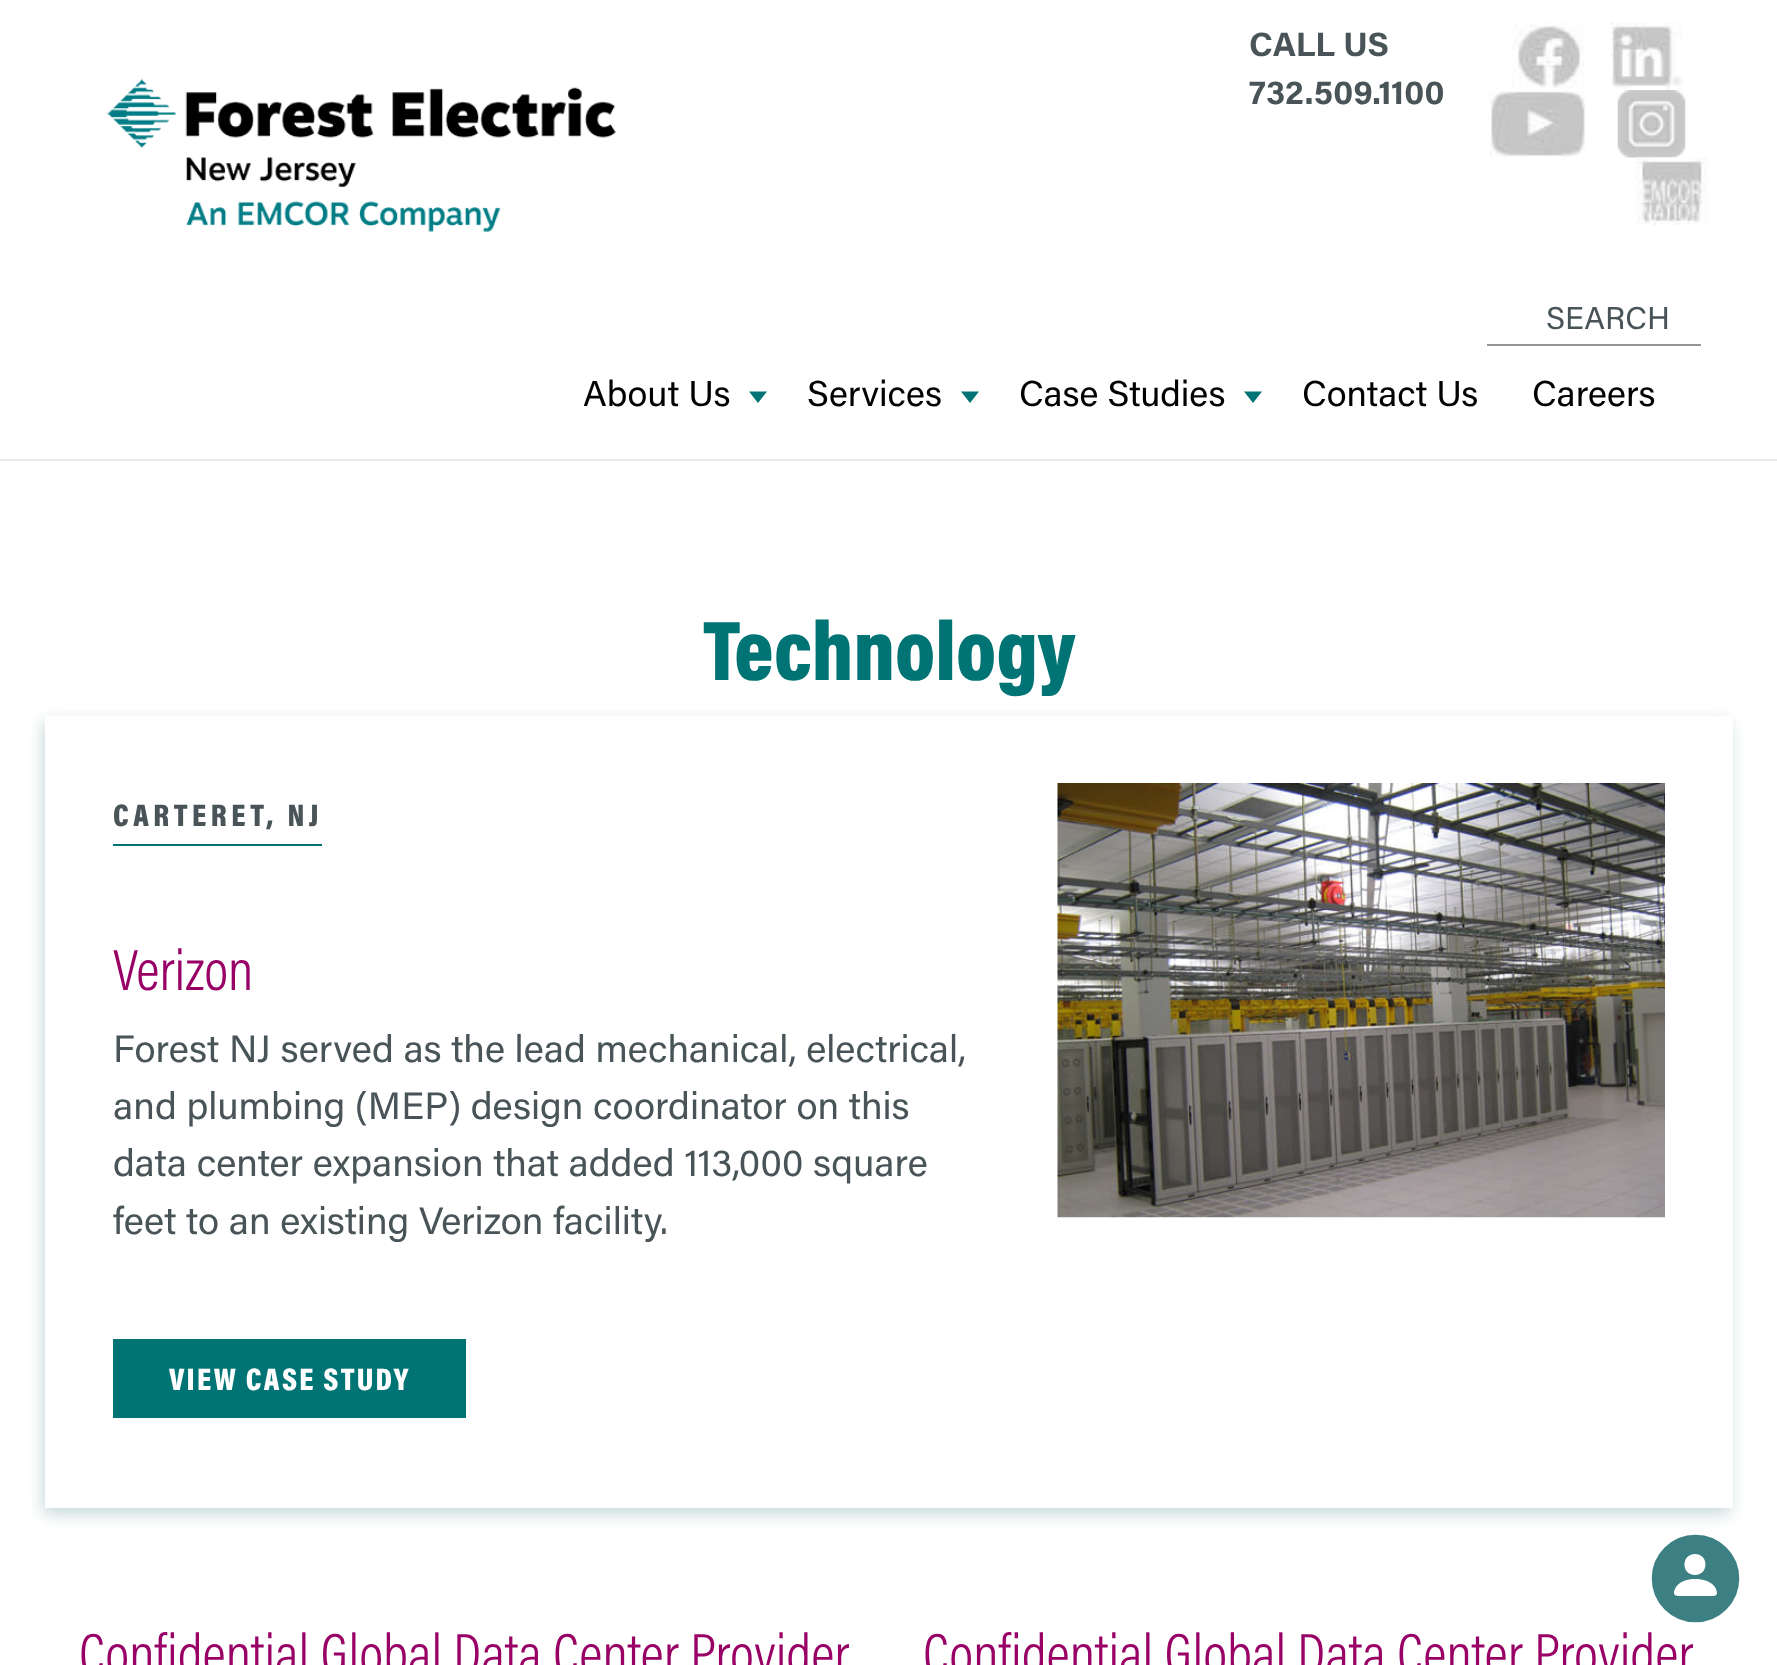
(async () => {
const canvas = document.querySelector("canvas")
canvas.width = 1777
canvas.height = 1665
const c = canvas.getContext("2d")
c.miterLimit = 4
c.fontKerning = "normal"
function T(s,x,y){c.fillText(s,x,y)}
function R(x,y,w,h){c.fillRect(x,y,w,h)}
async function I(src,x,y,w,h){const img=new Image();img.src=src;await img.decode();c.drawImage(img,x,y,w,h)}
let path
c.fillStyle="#fff"
R(0,0,1777,1665)
c.fillStyle="#ececec"
R(0,459,1777,2)
c.font="bold 33.75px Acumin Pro"
c.fillStyle="#485458"
T("CALL US",1249,56)
T("732.509.1100",1249,104)
await I("1.png",106,78,510,154)
await I("2.png",1512,22,72,66)
await I("3.png",1611,22,72,68)
await I("4.png",1489,91,97,67)
await I("5.png",1617,90,69,68)
await I("6.png",1636,157,72,68)
c.fillStyle="#939498"
R(1487,344,214,2)
c.font="31.5px Acumin Pro"
c.fillStyle="#485458"
T("SEARCH",1546,329)
c.font="36px Acumin Pro"
c.fillStyle="#010101"
T("About Us",583,406)
c.fillStyle="#007474"
path = new Path2D("M749 391.5h18l-9 11.5z")
c.fill(path)
c.fillStyle="#010101"
T("Services",807,406)
c.fillStyle="#007474"
path = new Path2D("M961 391.5h18l-9 11.5z")
c.fill(path)
c.fillStyle="#010101"
T("Case Studies",1019,406)
c.fillStyle="#007474"
path = new Path2D("M1244 391.5h18l-9 11.5z")
c.fill(path)
c.fillStyle="#010101"
T("Contact Us",1302,406)
T("Careers",1532,406)
c.font="900 85.5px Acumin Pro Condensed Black"
c.fillStyle="#007474"
T("Technology",703,680)
c.save()
path = new Path2D("M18 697h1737v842h-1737zm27 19h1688v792h-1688z")
c.clip(path,"evenodd")
c.fillStyle="#c6d8d8"
c.filter="blur(8px)"
c.beginPath()
c.rect(43,722,1687,792)
c.fill()
c.filter="none"
c.restore()
c.fillStyle="#007374"
R(113,844,209,2)
c.letterSpacing="4.5px"
c.font="900 31.5px Acumin Pro Condensed Black"
c.fillStyle="#485458"
T("CARTERET, NJ",113,826)
c.letterSpacing="0px"
c.font="300 58.5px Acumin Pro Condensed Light"
c.fillStyle="#906"
T("Verizon",113,990)
c.font="38.25px Acumin Pro"
c.fillStyle="#485458"
T("Forest NJ served as the lead mechanical, electrical,",113,1062)
T("and plumbing (MEP) design coordinator on this",113,1119)
T("data center expansion that added 113,000 square",113,1176)
T("feet to an existing Verizon facility.",113,1234)
c.fillStyle="#007474"
R(113,1339,353,79)
c.letterSpacing="2.25px"
c.font="900 31.5px Acumin Pro Condensed Black"
c.fillStyle="#fff"
T("VIEW CASE STUDY",169,1390)
await I("7.png",1057,783,608,435)
c.letterSpacing="0px"
c.font="300 58.5px Acumin Pro Condensed Light"
c.fillStyle="#906"
T("Confidential Global Data Center Provider",79,1674)
T("Confidential Global Data Center Provider",923,1674)
c.fillStyle="#3c8084"
c.beginPath()
c.arc(1695.5,1578.5,46,0,7)
c.fill()
c.strokeStyle="#fff"
c.lineWidth=4.5
c.stroke()
c.fillStyle="#fff"
path = new Path2D("M1678 1596c0 0-4 0-4-3c0-4 4-14 21-14c18 0 22 10 22 14c0 3-4 3-4 3zm17-21c14 0 14-21 0-21c-14 0-14 21 0 21z")
c.fill(path)
})()
